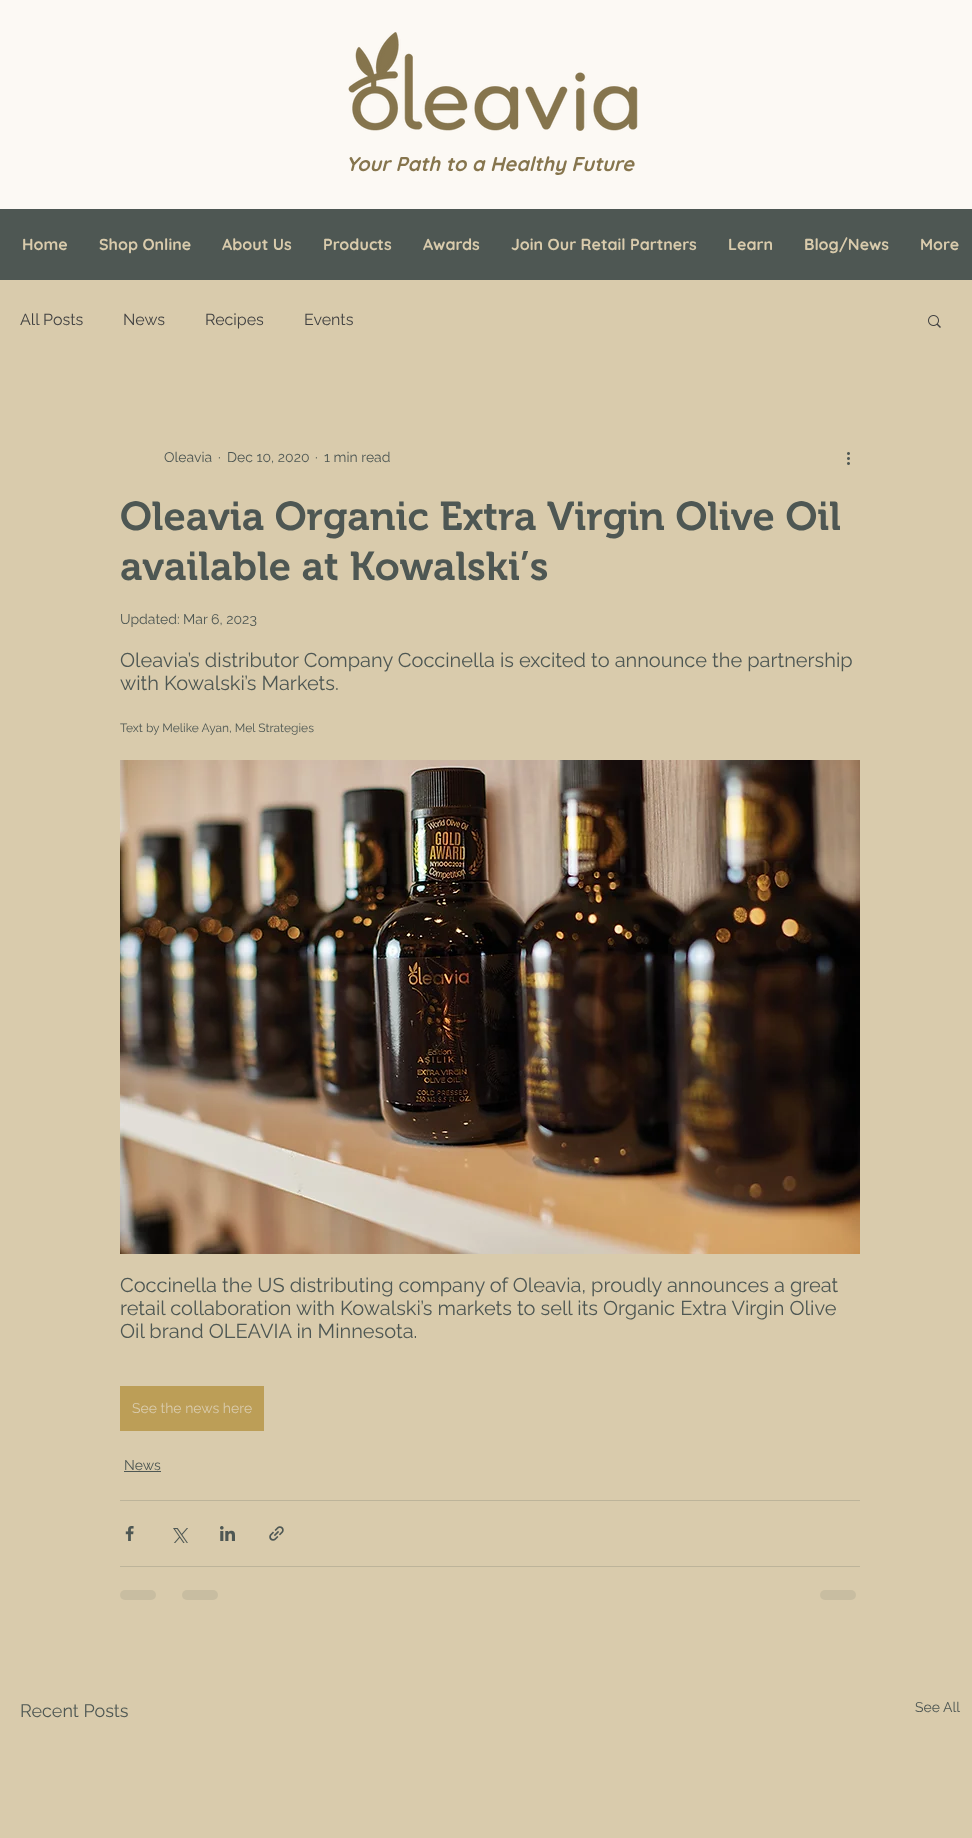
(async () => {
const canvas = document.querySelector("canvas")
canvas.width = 972
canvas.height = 1838
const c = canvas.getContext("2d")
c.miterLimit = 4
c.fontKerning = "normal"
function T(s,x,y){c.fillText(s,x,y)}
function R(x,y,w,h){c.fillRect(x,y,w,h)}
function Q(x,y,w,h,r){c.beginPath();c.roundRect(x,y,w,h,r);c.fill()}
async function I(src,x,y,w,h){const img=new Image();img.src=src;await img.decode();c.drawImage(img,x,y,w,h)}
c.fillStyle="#d9cbac"
R(0,0,972,1838)
c.fillStyle="#fcf9f4"
R(0,0,972,209)
await I("1.png",348,32,290,99)
c.font="italic bold 20px Quicksand"
c.fillStyle="#86754d"
T("Your Path to a Healthy Future",346,171)
c.fillStyle="#4e5753"
R(0,209,972,71)
c.font="bold 16px Quicksand"
c.fillStyle="#d9cbac"
T("Home",22,250)
T("Shop Online",99,250)
T("About Us",222,250)
T("Products",323,250)
T("Awards",423,250)
T("Join Our Retail Partners",511,250)
T("Learn",728,250)
T("Blog/News",804,250)
T("More",920,250)
c.font="16px Raleway"
c.fillStyle="#414141"
T("All Posts",20,325)
T("News",123,325)
T("Recipes",205,325)
T("Events",304,325)
await I("2.png",928,315,13,13)
c.font="14px Raleway"
c.fillStyle="#4e5753"
T("Oleavia",164,462)
T("·",218,462)
T("Dec 10, 2020",227,462)
T("·",315,462)
T("1 min read",324,462)
await I("3.png",847,452,3,13)
c.font="600 40px 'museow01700'"
T("Oleavia Organic Extra Virgin Olive Oil",120,530)
T("available at Kowalski’s",120,580)
c.font="14px Raleway"
T("Updated: Mar 6, 2023",120,624)
c.font="20px Raleway"
T("Oleavia’s distributor Company Coccinella is excited to announce the partnership",120,667)
T("with Kowalski’s Markets.",120,690)
c.font="12px Raleway"
T("Text by Melike Ayan, Mel Strategies",120,732)
await I("4.png",120,760,740,494)
c.font="20px Raleway"
T("Coccinella the US distributing company of Oleavia, proudly announces a great",120,1292)
T("retail collaboration with Kowalski’s markets to sell its Organic Extra Virgin Olive",120,1315)
T("Oil brand OLEAVIA in Minnesota.",120,1338)
c.fillStyle="#bc9e57"
R(120,1386,144,45)
c.font="14px Raleway"
c.fillStyle="#d9cbac"
T("See the news here",132,1413)
c.fillStyle="#4e5753"
T("News",124,1470)
R(124,1471,37,1)
c.fillStyle="#bdb49a"
R(120,1500,740,1)
await I("5.png",125,1526,9,15)
await I("6.png",173,1528,15,15)
await I("7.png",220,1526,15,15)
await I("8.png",269,1526,15,15)
R(120,1566,740,1)
c.fillStyle="#c8bda1"
Q(120,1590,36,10,5)
Q(182,1590,36,10,5)
Q(820,1590,36,10,5)
c.font="18px Raleway"
c.fillStyle="#4e5753"
T("Recent Posts",20,1717)
c.font="14px Raleway"
T("See All",915,1712)
})()
